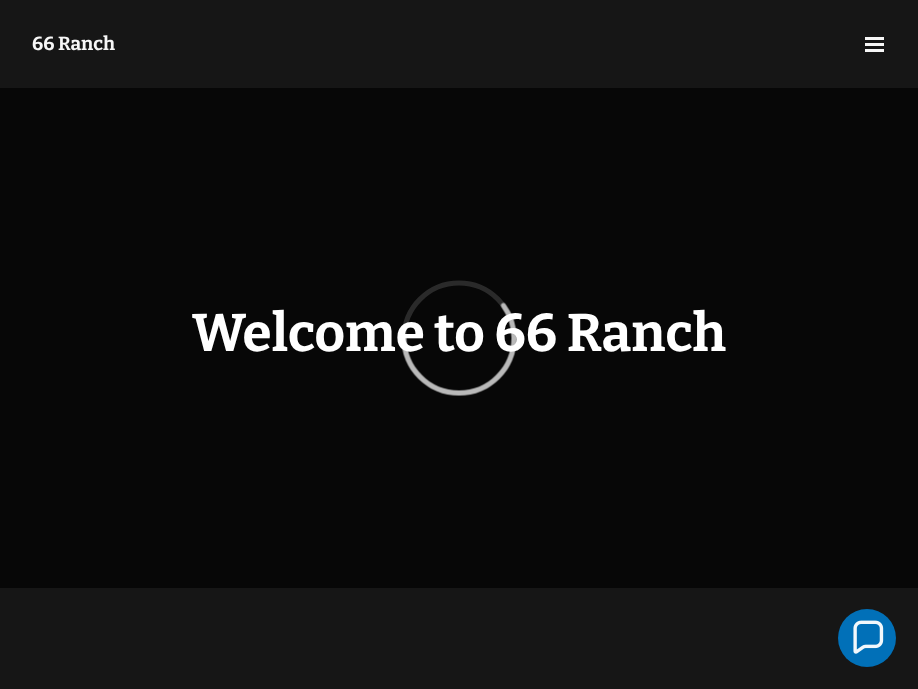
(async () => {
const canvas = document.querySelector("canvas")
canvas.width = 918
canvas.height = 689
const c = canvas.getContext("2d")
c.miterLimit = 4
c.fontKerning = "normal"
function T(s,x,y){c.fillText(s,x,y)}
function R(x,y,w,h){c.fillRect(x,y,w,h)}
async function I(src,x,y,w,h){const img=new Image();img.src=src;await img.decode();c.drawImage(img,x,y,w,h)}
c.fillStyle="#161616"
R(0,0,918,689)
c.font="100 19px Bitter"
c.fillStyle="#f7f7f7"
T("66 Ranch",32,50)
R(865,37,19,3)
R(865,43,19,3)
R(865,49,19,3)
await I("1.png",0,88,918,500)
c.font="100 53px Bitter"
c.fillStyle="#fff"
T("Welcome to 66 Ranch",192,351)
c.fillStyle="#0170b8"
c.beginPath()
c.arc(867,638,29,0,7)
c.fill()
await I("2.png",853,620,31,34)
})()
